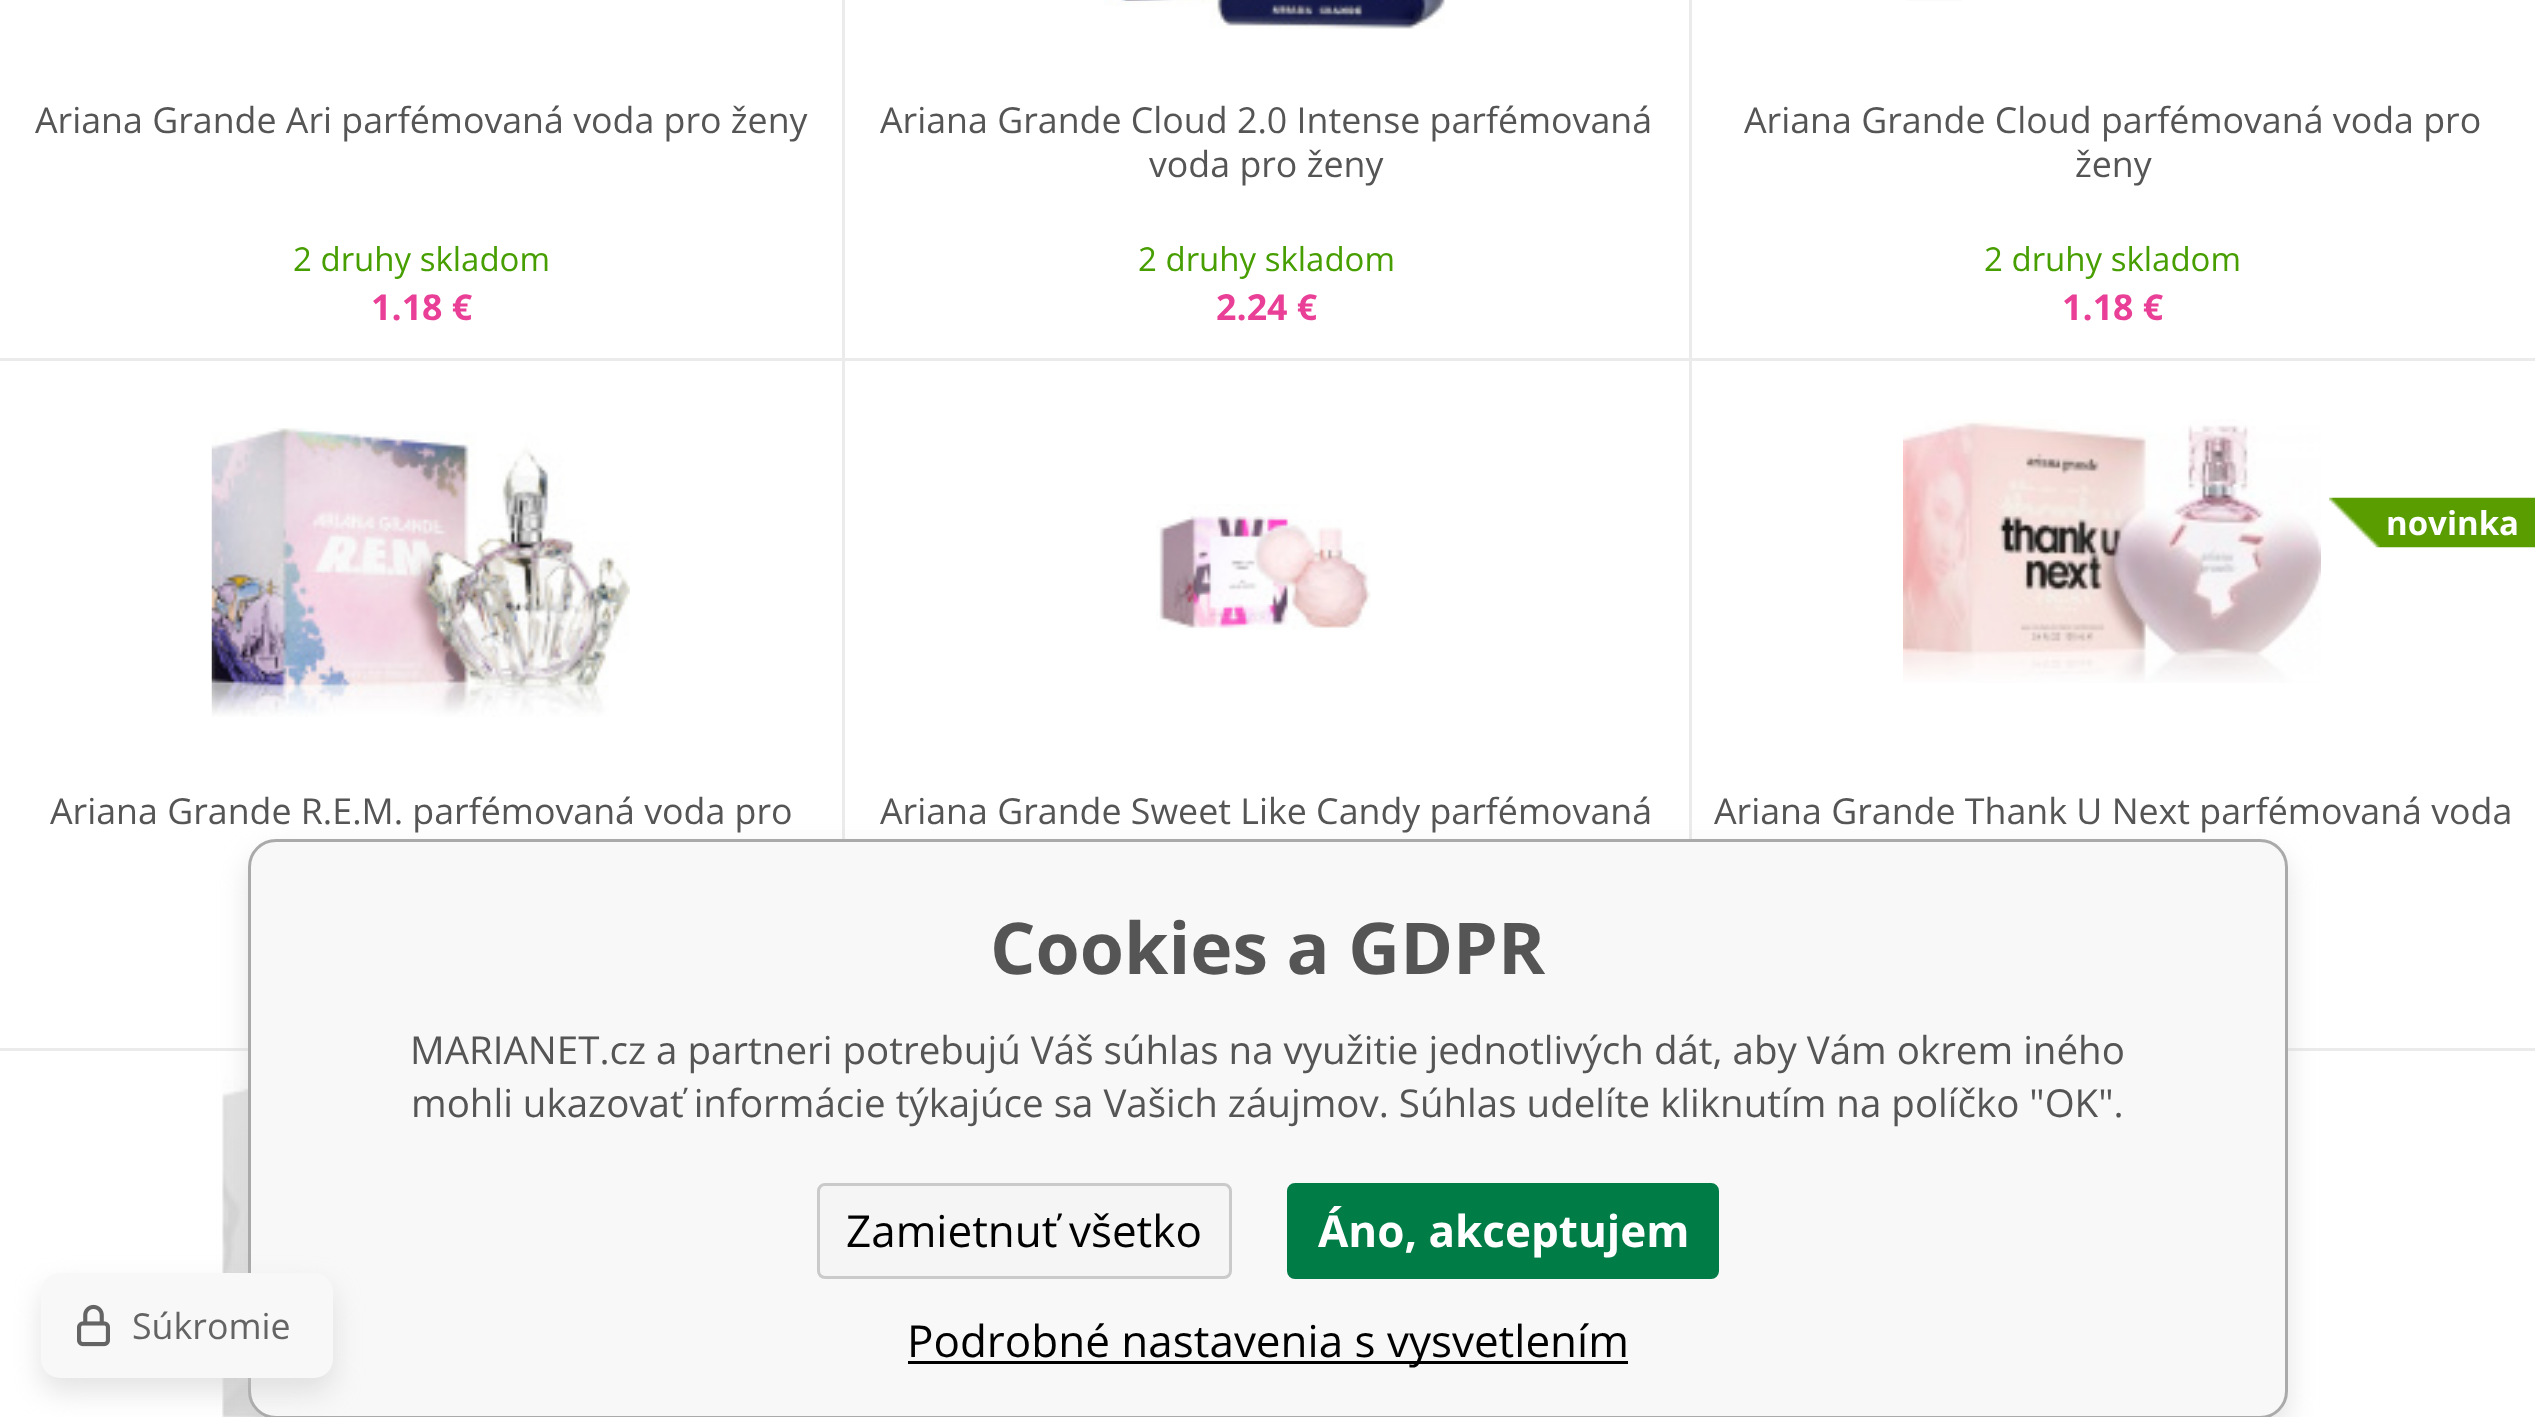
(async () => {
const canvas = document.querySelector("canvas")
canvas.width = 2535
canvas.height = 1417
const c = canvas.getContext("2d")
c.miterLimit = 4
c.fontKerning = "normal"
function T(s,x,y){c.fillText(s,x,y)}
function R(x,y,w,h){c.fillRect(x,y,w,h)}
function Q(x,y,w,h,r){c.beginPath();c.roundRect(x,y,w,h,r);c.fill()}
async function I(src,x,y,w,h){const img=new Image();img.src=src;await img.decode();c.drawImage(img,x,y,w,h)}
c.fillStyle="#fff"
R(0,0,2535,1417)
c.fillStyle="#ebebeb"
R(842,0,3,360)
R(0,358,844,3)
c.font="35.75px Open Sans"
c.fillStyle="#555"
T("Ariana Grande Ari parfémovaná voda pro ženy",35,133)
c.font="33px Open Sans"
c.fillStyle="#479e01"
T("2 druhy skladom",293,271)
c.font="bold 35.75px Open Sans"
c.fillStyle="#e93f97"
T("1.18 €",371,320)
c.fillStyle="#ebebeb"
R(1689,0,3,360)
R(844,358,1691,3)
await I("1.png",1104,0,341,29)
c.font="35.75px Open Sans"
c.fillStyle="#555"
T("Ariana Grande Cloud 2.0 Intense parfémovaná",880,133)
T("voda pro ženy",1149,177)
c.font="33px Open Sans"
c.fillStyle="#479e01"
T("2 druhy skladom",1138,271)
c.font="bold 35.75px Open Sans"
c.fillStyle="#e93f97"
T("2.24 €",1216,320)
c.fillStyle="#fbfbfc"
R(1907,0,55,1)
c.font="35.75px Open Sans"
c.fillStyle="#555"
T("Ariana Grande Cloud parfémovaná voda pro",1744,133)
T("ženy",2075,177)
c.font="33px Open Sans"
c.fillStyle="#479e01"
T("2 druhy skladom",1984,271)
c.font="bold 35.75px Open Sans"
c.fillStyle="#e93f97"
T("1.18 €",2062,320)
c.fillStyle="#ebebeb"
R(842,360,3,479)
R(0,1048,248,3)
await I("2.png",211,427,419,290)
c.font="35.75px Open Sans"
c.fillStyle="#555"
T("Ariana Grande R.E.M. parfémovaná voda pro",50,824)
c.fillStyle="#ebebeb"
R(1689,360,3,479)
await I("3.png",1156,504,215,126)
c.fillStyle="#555"
T("Ariana Grande Sweet Like Candy parfémovaná",880,824)
c.fillStyle="#ebebeb"
R(2288,1048,247,3)
await I("4.png",1903,419,418,264)
await I("5.png",2329,497,206,51)
c.font="bold 33px Open Sans"
c.fillStyle="#fff"
T("novinka",2386,535)
c.font="35.75px Open Sans"
c.fillStyle="#555"
T("Ariana Grande Thank U Next parfémovaná voda",1714,824)
await I("6.png",222,1078,44,339)
c.fillStyle="#c8c8c880"
c.filter="blur(14px)"
c.beginPath()
c.roundRect(248,853,2040,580,28)
c.fill()
c.filter="none"
c.fillStyle="#f8f8f8"
c.beginPath()
c.roundRect(249.5,840.5,2037,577,26.5)
c.fill()
c.strokeStyle="#aaa"
c.lineWidth=3
c.stroke()
c.fillStyle="#c8c8c880"
c.filter="blur(14px)"
c.beginPath()
c.roundRect(41,1287,292,105,19)
c.fill()
c.filter="none"
c.fillStyle="#f8f8f8"
Q(41,1273,292,105,19)
await I("7.png",77,1304,33,43)
c.fillStyle="#646464"
T("Súkromie",132,1339)
c.font="bold 71.5px Open Sans"
c.fillStyle="#555"
T("Cookies a GDPR",990,974)
c.font="38.5px Open Sans"
T("MARIANET.cz a partneri potrebujú Váš súhlas na využitie jednotlivých dát, aby Vám okrem iného",410,1064)
T("mohli ukazovať informácie týkajúce sa Vašich záujmov. Súhlas udelíte kliknutím na políčko \"OK\".",411,1117)
c.fillStyle="#f5f5f5"
c.beginPath()
c.roundRect(818.5,1184.5,412,93,6.5)
c.fill()
c.strokeStyle="#cacaca"
c.stroke()
c.font="44px Open Sans"
c.fillStyle="#000"
T("Zamietnuť všetko",846,1247)
c.fillStyle="#007c47"
c.beginPath()
c.roundRect(1288.5,1184.5,429,93,6.5)
c.fill()
c.strokeStyle="#007c47"
c.stroke()
c.font="bold 44px Open Sans"
c.fillStyle="#fff"
T("Áno, akceptujem",1318,1247)
c.fillStyle="#000"
R(908,1361,720,3)
c.font="44px Open Sans"
T("Podrobné nastavenia s vysvetlením",907,1357)
})()
